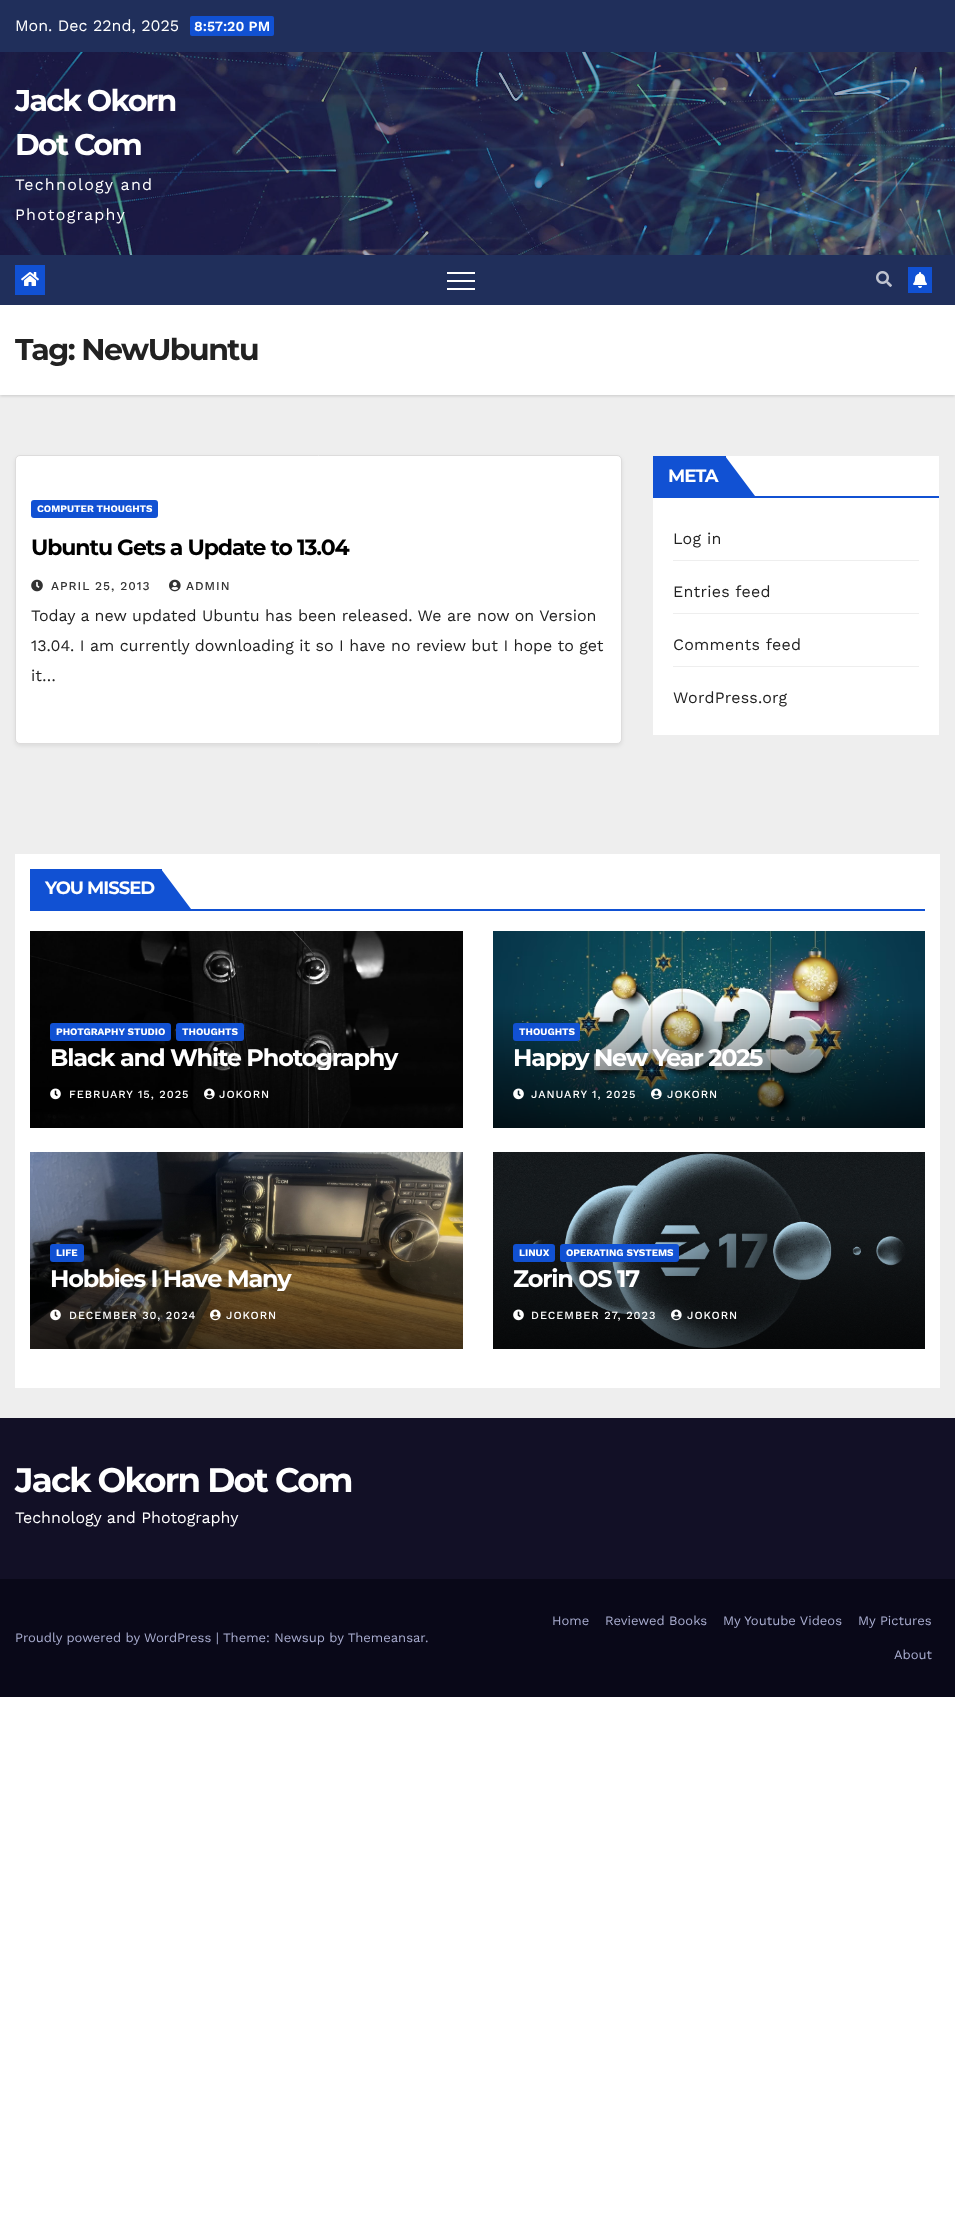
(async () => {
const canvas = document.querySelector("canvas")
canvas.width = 955
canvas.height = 2238
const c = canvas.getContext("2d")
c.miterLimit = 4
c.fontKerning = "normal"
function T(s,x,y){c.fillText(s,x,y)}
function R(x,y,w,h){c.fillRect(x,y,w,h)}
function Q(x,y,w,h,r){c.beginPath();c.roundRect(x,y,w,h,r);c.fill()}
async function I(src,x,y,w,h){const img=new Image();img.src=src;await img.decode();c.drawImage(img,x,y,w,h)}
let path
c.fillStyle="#fff"
R(0,0,955,2238)
c.fillStyle="#eee"
R(0,395,955,1023)
c.fillStyle="#202f5b"
R(0,0,955,52)
c.font="16px Work Sans"
c.fillStyle="#fff"
T("Mon. Dec 22nd, 2025",15,31)
c.fillStyle="#1151d3"
Q(190,16,84,20,2)
c.font="600 14px Work Sans"
c.fillStyle="#fff"
T("8:57:20 PM",194,31)
await I("1.png",0,52,955,203)
c.letterSpacing="-1.75px"
c.font="bold 30px Montserrat"
T("Jack Okorn",15,111)
T("Dot Com",15,155)
c.letterSpacing="1.25px"
c.font="16px Work Sans"
T("Technology and",15,190)
T("Photography",15,220)
c.fillStyle="#00000026"
c.filter="blur(1.5px)"
c.beginPath()
c.rect(0,306,955,90)
c.fill()
c.filter="none"
c.fillStyle="#202f5b"
R(0,255,955,50)
c.fillStyle="#1151d3"
R(15,265,30,30)
await I("2.png",21,272,18,14)
c.fillStyle="#fff"
R(447,272,28,2)
R(447,280,28,2)
R(447,288,28,2)
await I("3.png",876,271,16,16)
c.fillStyle="#1151d3"
R(908,267,24,26)
await I("4.png",913,272,14,16)
c.fillStyle="#fff"
R(0,305,955,90)
c.letterSpacing="-1.5px"
c.font="bold 30px Montserrat"
c.fillStyle="#222"
T("Tag: NewUbuntu",15,360)
c.fillStyle="#00000014"
c.filter="blur(2px)"
c.beginPath()
c.roundRect(15,457,607,289,5)
c.fill()
c.filter="none"
c.fillStyle="#fff"
c.beginPath()
c.roundRect(15.5,455.5,606,288,4.5)
c.fill()
c.strokeStyle="#dddcdc"
c.stroke()
c.fillStyle="#1151d3"
Q(31,500,127,18,3)
c.letterSpacing="0px"
c.font="bold 10px Work Sans"
c.fillStyle="#fff"
T("COMPUTER THOUGHTS",37,512)
c.letterSpacing="-1.1px"
c.font="bold 22px Montserrat"
c.fillStyle="#000"
T("Ubuntu Gets a Update to 13.04",31,555)
await I("5.png",31,579,12,13)
c.letterSpacing="1px"
c.font="500 12px Work Sans"
c.fillStyle="#333"
T("APRIL 25, 2013",51,590)
await I("6.png",169,579,12,13)
T("ADMIN",186,590)
c.letterSpacing="0px"
c.font="16px Work Sans"
c.fillStyle="#222"
T("Today a new updated Ubuntu has been released. We are now on Version",31,621)
T("13.04. I am currently downloading it so I have no review but I hope to get",31,651)
T("it…",31,681)
c.fillStyle="#fff"
R(653,456,286,279)
c.fillStyle="#1151d3"
R(653,496,286,2)
R(653,456,73,40)
c.letterSpacing="-1px"
c.font="bold 18px Montserrat"
c.fillStyle="#fff"
T("META",668,482)
c.fillStyle="#1151d3"
path = new Path2D("M725 496v-40l30 40z")
c.fill(path)
c.fillStyle="#eee"
R(673,560,246,1)
c.letterSpacing="0.25px"
c.font="16px Work Sans"
c.fillStyle="#222"
T("Log in",673,544)
c.fillStyle="#eee"
R(673,613,246,1)
c.fillStyle="#222"
T("Entries feed",673,597)
c.fillStyle="#eee"
R(673,666,246,1)
c.fillStyle="#222"
T("Comments feed",673,650)
T("WordPress.org",673,703)
c.fillStyle="#fff"
R(15,854,925,534)
c.fillStyle="#1151d3"
R(30,909,895,2)
R(30,869,132,40)
c.letterSpacing="-1px"
c.font="bold 18px Montserrat"
c.fillStyle="#fff"
T("YOU MISSED",45,894)
c.fillStyle="#1151d3"
path = new Path2D("M161 909v-40l30 40z")
c.fill(path)
await I("7.png",30,931,433,197)
Q(50,1023,121,18,3)
c.letterSpacing="0px"
c.font="bold 10px Work Sans"
c.fillStyle="#fff"
T("PHOTGRAPHY STUDIO",56,1035)
c.fillStyle="#1151d3"
Q(176,1023,68,18,3)
c.fillStyle="#fff"
T("THOUGHTS",182,1035)
c.save()
c.beginPath()
c.rect(50,1045,393,25)
c.clip()
c.letterSpacing="-1.2px"
c.font="bold 24px Montserrat"
T("Black and White Photography",50,1066)
c.restore()
await I("8.png",50,1088,11,12)
c.letterSpacing="1px"
c.font="500 11px Work Sans"
T("FEBRUARY 15, 2025",69,1098)
await I("9.png",204,1088,11,12)
T("JOKORN",219,1098)
await I("10.png",493,931,432,197)
c.fillStyle="#1151d3"
Q(513,1023,67,18,3)
c.letterSpacing="0px"
c.font="bold 10px Work Sans"
c.fillStyle="#fff"
T("THOUGHTS",519,1035)
c.save()
c.beginPath()
c.rect(513,1045,392,25)
c.clip()
c.letterSpacing="-1.2px"
c.font="bold 24px Montserrat"
T("Happy New Year 2025",513,1066)
c.restore()
await I("11.png",513,1088,11,12)
c.letterSpacing="1px"
c.font="500 11px Work Sans"
T("JANUARY 1, 2025",531,1098)
await I("12.png",651,1088,11,12)
T("JOKORN",667,1098)
await I("13.png",30,1152,433,197)
c.fillStyle="#1151d3"
Q(50,1244,34,18,3)
c.letterSpacing="0px"
c.font="bold 10px Work Sans"
c.fillStyle="#fff"
T("LIFE",56,1256)
c.save()
c.beginPath()
c.rect(50,1266,393,25)
c.clip()
c.letterSpacing="-1.2px"
c.font="bold 24px Montserrat"
T("Hobbies I Have Many",50,1287)
c.restore()
await I("14.png",50,1309,11,12)
c.letterSpacing="1px"
c.font="500 11px Work Sans"
T("DECEMBER 30, 2024",69,1319)
await I("15.png",210,1309,11,12)
T("JOKORN",226,1319)
await I("16.png",493,1152,432,197)
c.fillStyle="#1151d3"
Q(513,1244,42,18,3)
c.letterSpacing="0px"
c.font="bold 10px Work Sans"
c.fillStyle="#fff"
T("LINUX",519,1256)
c.fillStyle="#1151d3"
Q(560,1244,119,18,3)
c.fillStyle="#fff"
T("OPERATING SYSTEMS",566,1256)
c.letterSpacing="-1.2px"
c.font="bold 24px Montserrat"
T("Zorin OS 17",513,1287)
await I("17.png",513,1309,11,12)
c.letterSpacing="1px"
c.font="500 11px Work Sans"
T("DECEMBER 27, 2023",531,1319)
await I("18.png",671,1309,11,12)
T("JOKORN",687,1319)
c.fillStyle="#121026"
R(0,1418,955,161)
c.letterSpacing="-1.75px"
c.font="bold 34px Montserrat"
c.fillStyle="#fff"
T("Jack Okorn Dot Com",15,1492)
c.letterSpacing="0px"
c.font="16px Work Sans"
T("Technology and Photography",15,1523)
c.fillStyle="#090818"
R(0,1579,955,118)
c.font="13px Work Sans"
c.fillStyle="#aaaed1"
T("Proudly powered by WordPress |",15,1642)
T("Theme: Newsup by Themeansar",223,1642)
T(".",425,1642)
T("Home",552,1625)
T("Reviewed Books",605,1625)
T("My Youtube Videos",723,1625)
T("My Pictures",858,1625)
T("About",894,1659)
})()
